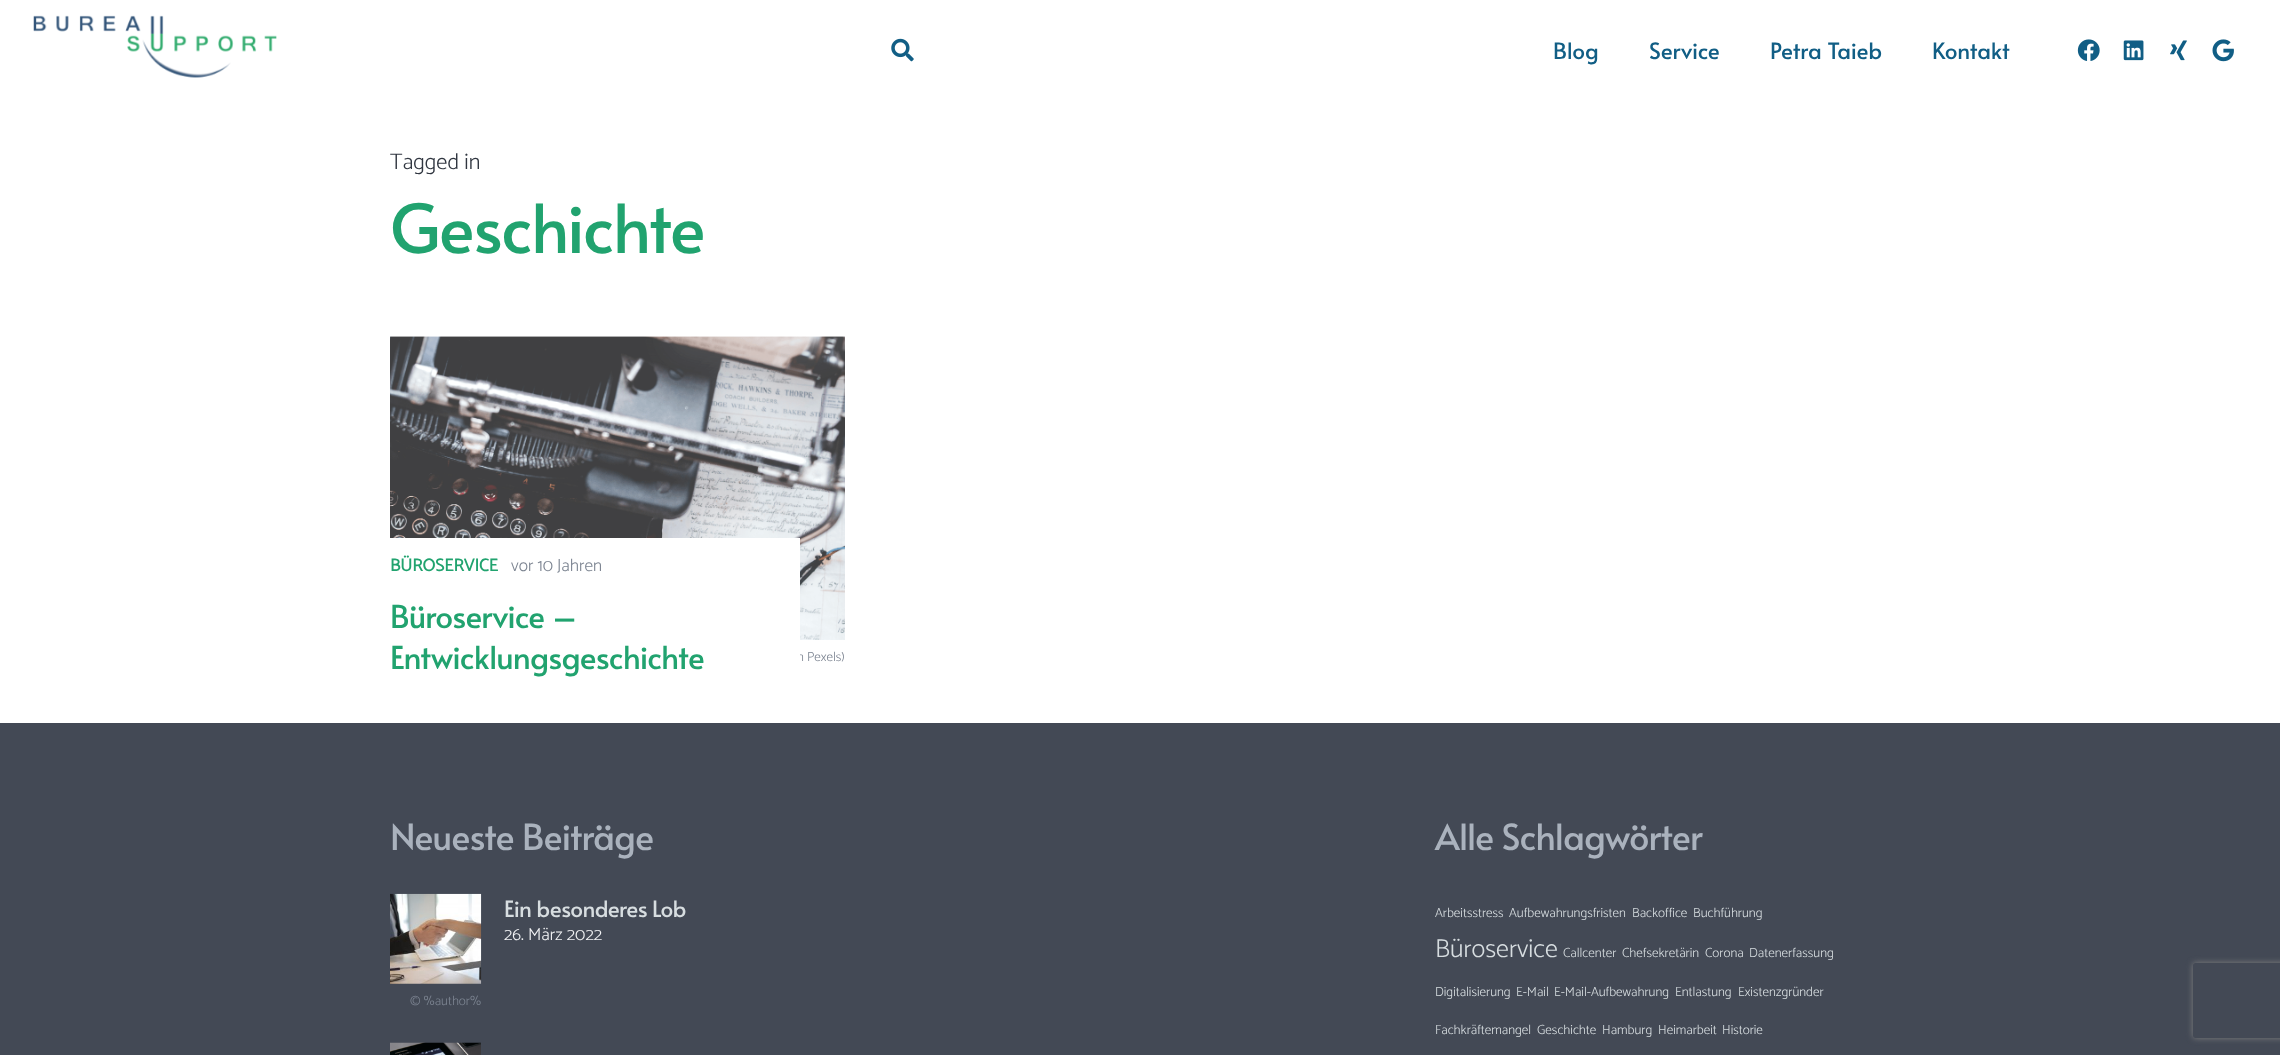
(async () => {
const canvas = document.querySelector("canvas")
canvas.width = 2280
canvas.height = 1055
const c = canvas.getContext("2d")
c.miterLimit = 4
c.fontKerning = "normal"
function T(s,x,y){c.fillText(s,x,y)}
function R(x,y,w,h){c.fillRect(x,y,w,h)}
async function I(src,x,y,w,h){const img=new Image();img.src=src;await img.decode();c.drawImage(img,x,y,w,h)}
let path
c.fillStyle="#fff"
R(0,0,2280,1055)
await I("1.png",33,15,244,63)
await I("2.png",891,38,23,24)
c.font="22.5px Alata"
c.fillStyle="#115e85"
T("Blog",1553,59)
T("Service",1649,59)
T("Petra Taieb",1770,59)
T("Kontakt",1932,59)
await I("3.png",2077,39,23,22)
await I("4.png",2123,40,21,21)
await I("5.png",2170,40,17,21)
await I("6.png",2212,39,22,23)
c.font="300 22.5px Catamaran"
c.fillStyle="#303640"
T("Tagged in",390,169)
c.letterSpacing="-1.4px"
c.font="67.5px Alata"
c.fillStyle="#21a36f"
T("Geschichte",390,253)
await I("7.png",390,336,455,304)
c.letterSpacing="0px"
c.font="300 13.25px Catamaran"
c.fillStyle="#7c8491"
T("n Pexels)",797,661)
c.fillStyle="#fff"
R(390,538,410,123)
c.font="bold 17.5px Catamaran"
c.fillStyle="#21a36f"
T("BÜROSERVICE",390,571)
c.font="300 17.5px Catamaran"
c.fillStyle="#7c8491"
T("vor 10 Jahren",511,571)
c.letterSpacing="-0.6px"
c.font="31.5px Alata"
c.fillStyle="#21a36f"
T("Büroservice –",390,628)
T("Entwicklungsgeschichte",390,669)
c.fillStyle="#434955"
R(0,723,2280,332)
c.letterSpacing="-0.75px"
c.font="36px Alata"
c.fillStyle="#aab2bd"
T("Neueste Beiträge",390,850)
c.letterSpacing="-0.5px"
c.font="22.5px Alata"
c.fillStyle="#d7dde0"
T("Ein besonderes Lob",504,917)
c.letterSpacing="0px"
c.font="300 17.5px Catamaran"
c.fillStyle="#f2f3f5"
T("26. März 2022",504,940)
await I("8.png",390,893,92,91)
c.font="300 13.25px Catamaran"
c.fillStyle="#7c8491"
T("© %author%",410,1005)
await I("9.png",390,1042,91,13)
c.letterSpacing="-0.75px"
c.font="36px Alata"
c.fillStyle="#aab2bd"
T("Alle Schlagwörter",1435,850)
c.letterSpacing="0px"
c.font="300 13.25px Catamaran"
c.fillStyle="#d7dde0"
T("Arbeitsstress",1435,917)
T("Aufbewahrungsfristen",1509,917)
T("Backoffice",1632,917)
T("Buchführung",1693,917)
c.font="300 26px Catamaran"
T("Büroservice",1435,957)
c.font="300 13.25px Catamaran"
T("Callcenter",1563,957)
T("Chefsekretärin",1622,957)
T("Corona",1705,957)
T("Datenerfassung",1749,957)
T("Digitalisierung",1435,996)
T("E-Mail",1516,996)
T("E-Mail-Aufbewahrung",1554,996)
T("Entlastung",1675,996)
T("Existenzgründer",1738,996)
T("Fachkräftemangel",1435,1034)
T("Geschichte",1537,1034)
T("Hamburg",1602,1034)
T("Heimarbeit",1658,1034)
T("Historie",1722,1034)
c.save()
path = new Path2D("M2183 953h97v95h-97zm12.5 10h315c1.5 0 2.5 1 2.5 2.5v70c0 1.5-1 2.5-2.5 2.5h-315c-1.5 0-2.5-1-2.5-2.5v-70c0-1.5 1-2.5 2.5-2.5z")
c.clip(path,"evenodd")
c.fillStyle="#808080"
c.filter="blur(3px)"
c.beginPath()
c.roundRect(2193,963,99,75,2.5)
c.fill()
c.filter="none"
c.restore()
})()
